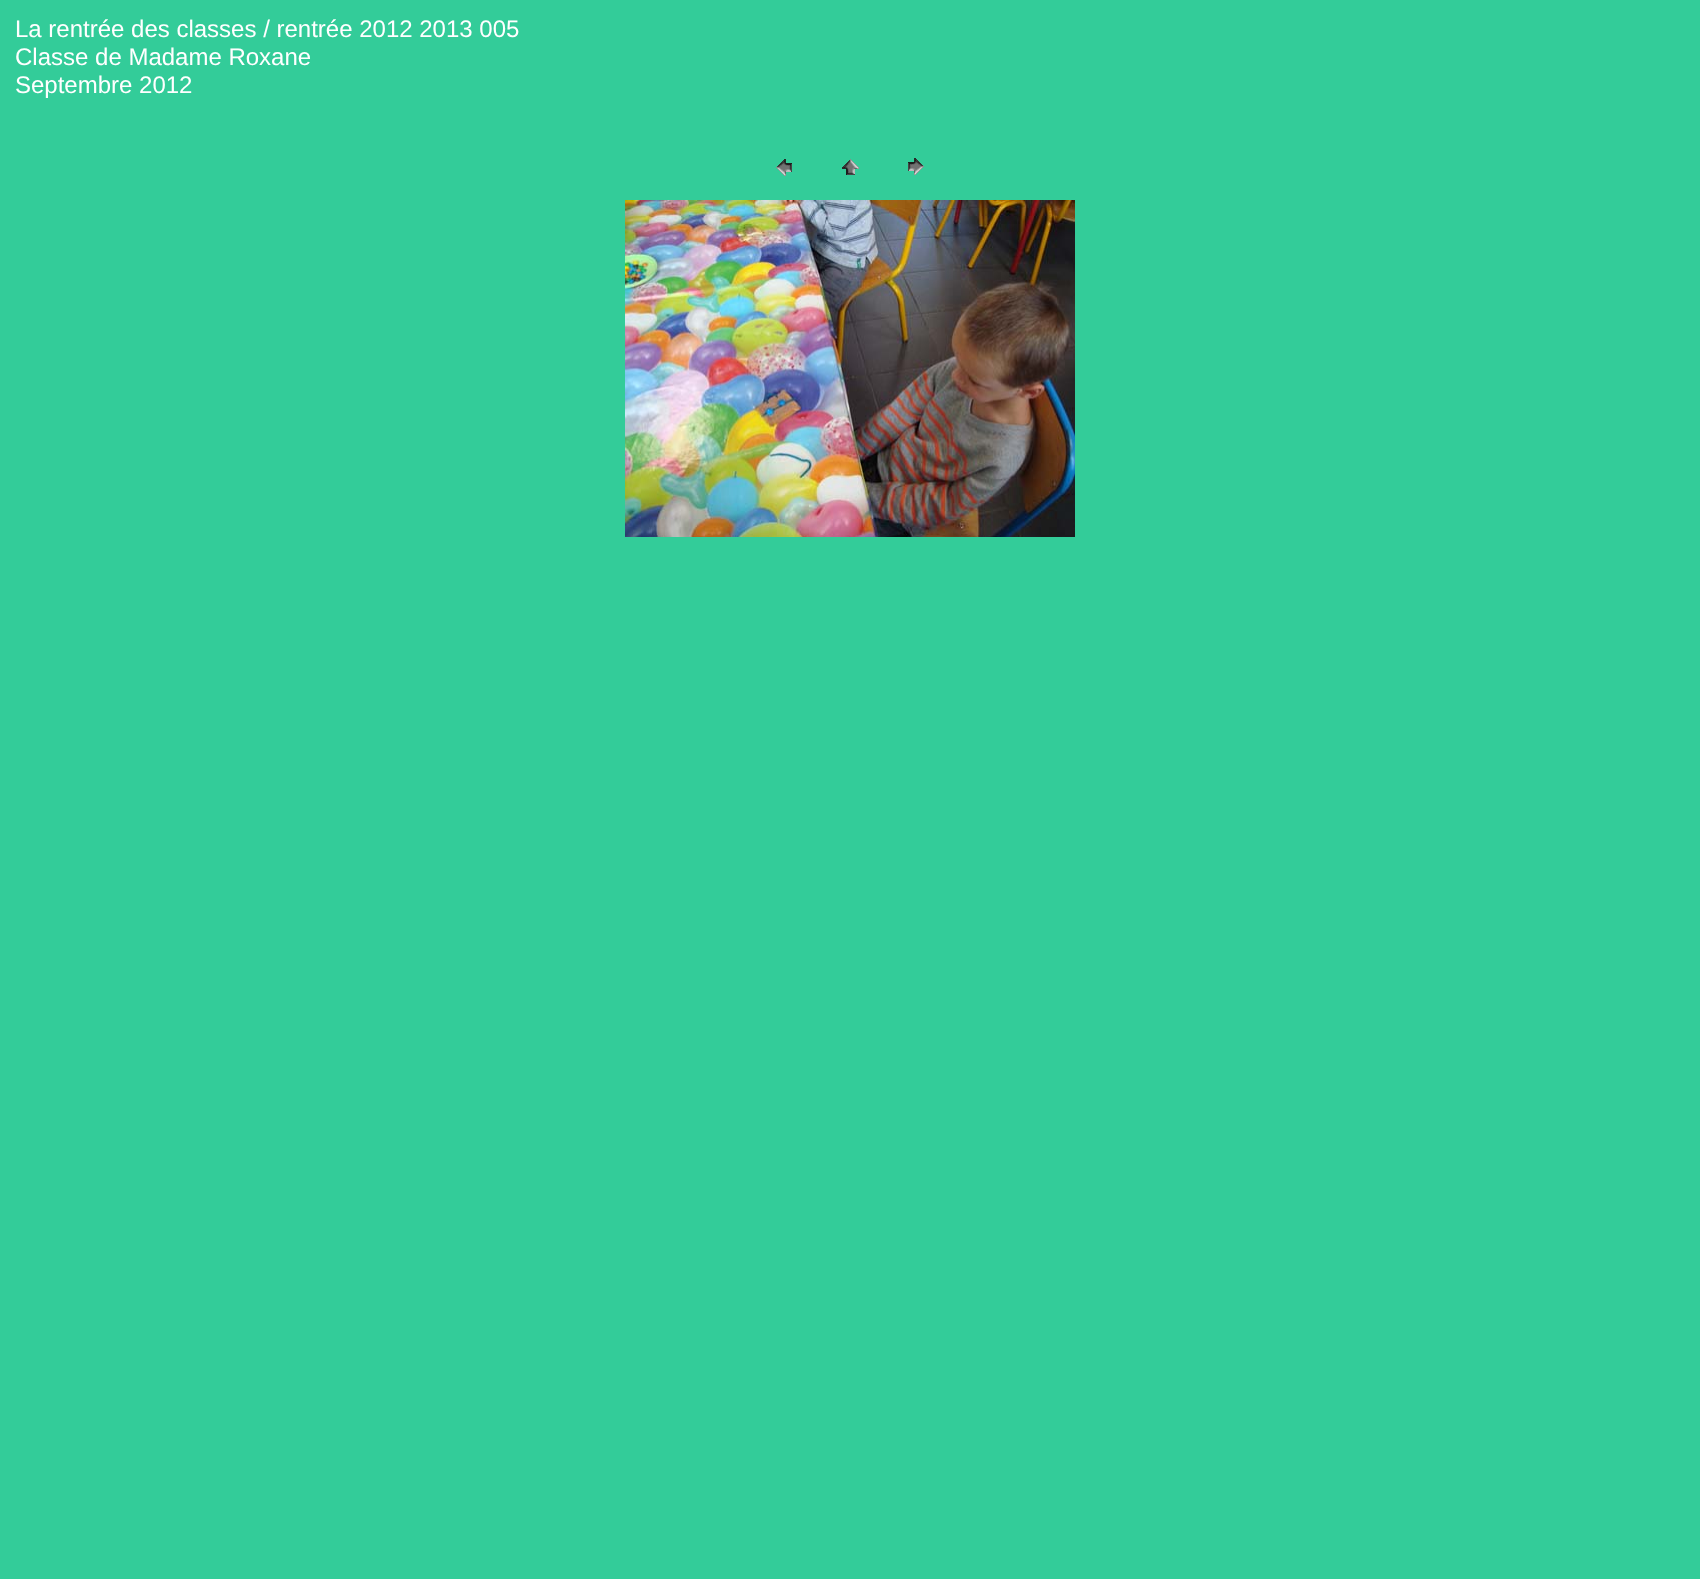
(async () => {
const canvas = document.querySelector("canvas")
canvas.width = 1700
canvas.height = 1579
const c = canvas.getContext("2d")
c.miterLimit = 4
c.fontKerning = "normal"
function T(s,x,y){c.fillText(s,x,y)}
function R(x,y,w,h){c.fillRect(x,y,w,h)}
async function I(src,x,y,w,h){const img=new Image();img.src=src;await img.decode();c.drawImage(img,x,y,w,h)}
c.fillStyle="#3c9"
R(0,0,1700,1579)
c.font="24px Liberation Sans"
c.fillStyle="#fff"
T("La rentrée des classes / rentrée 2012 2013 005",15,37)
T("Classe de Madame Roxane",15,65)
T("Septembre 2012",15,93)
await I("1.png",776,159,16,17)
await I("2.png",842,159,17,16)
await I("3.png",908,158,16,17)
await I("4.png",625,200,450,337)
})()
